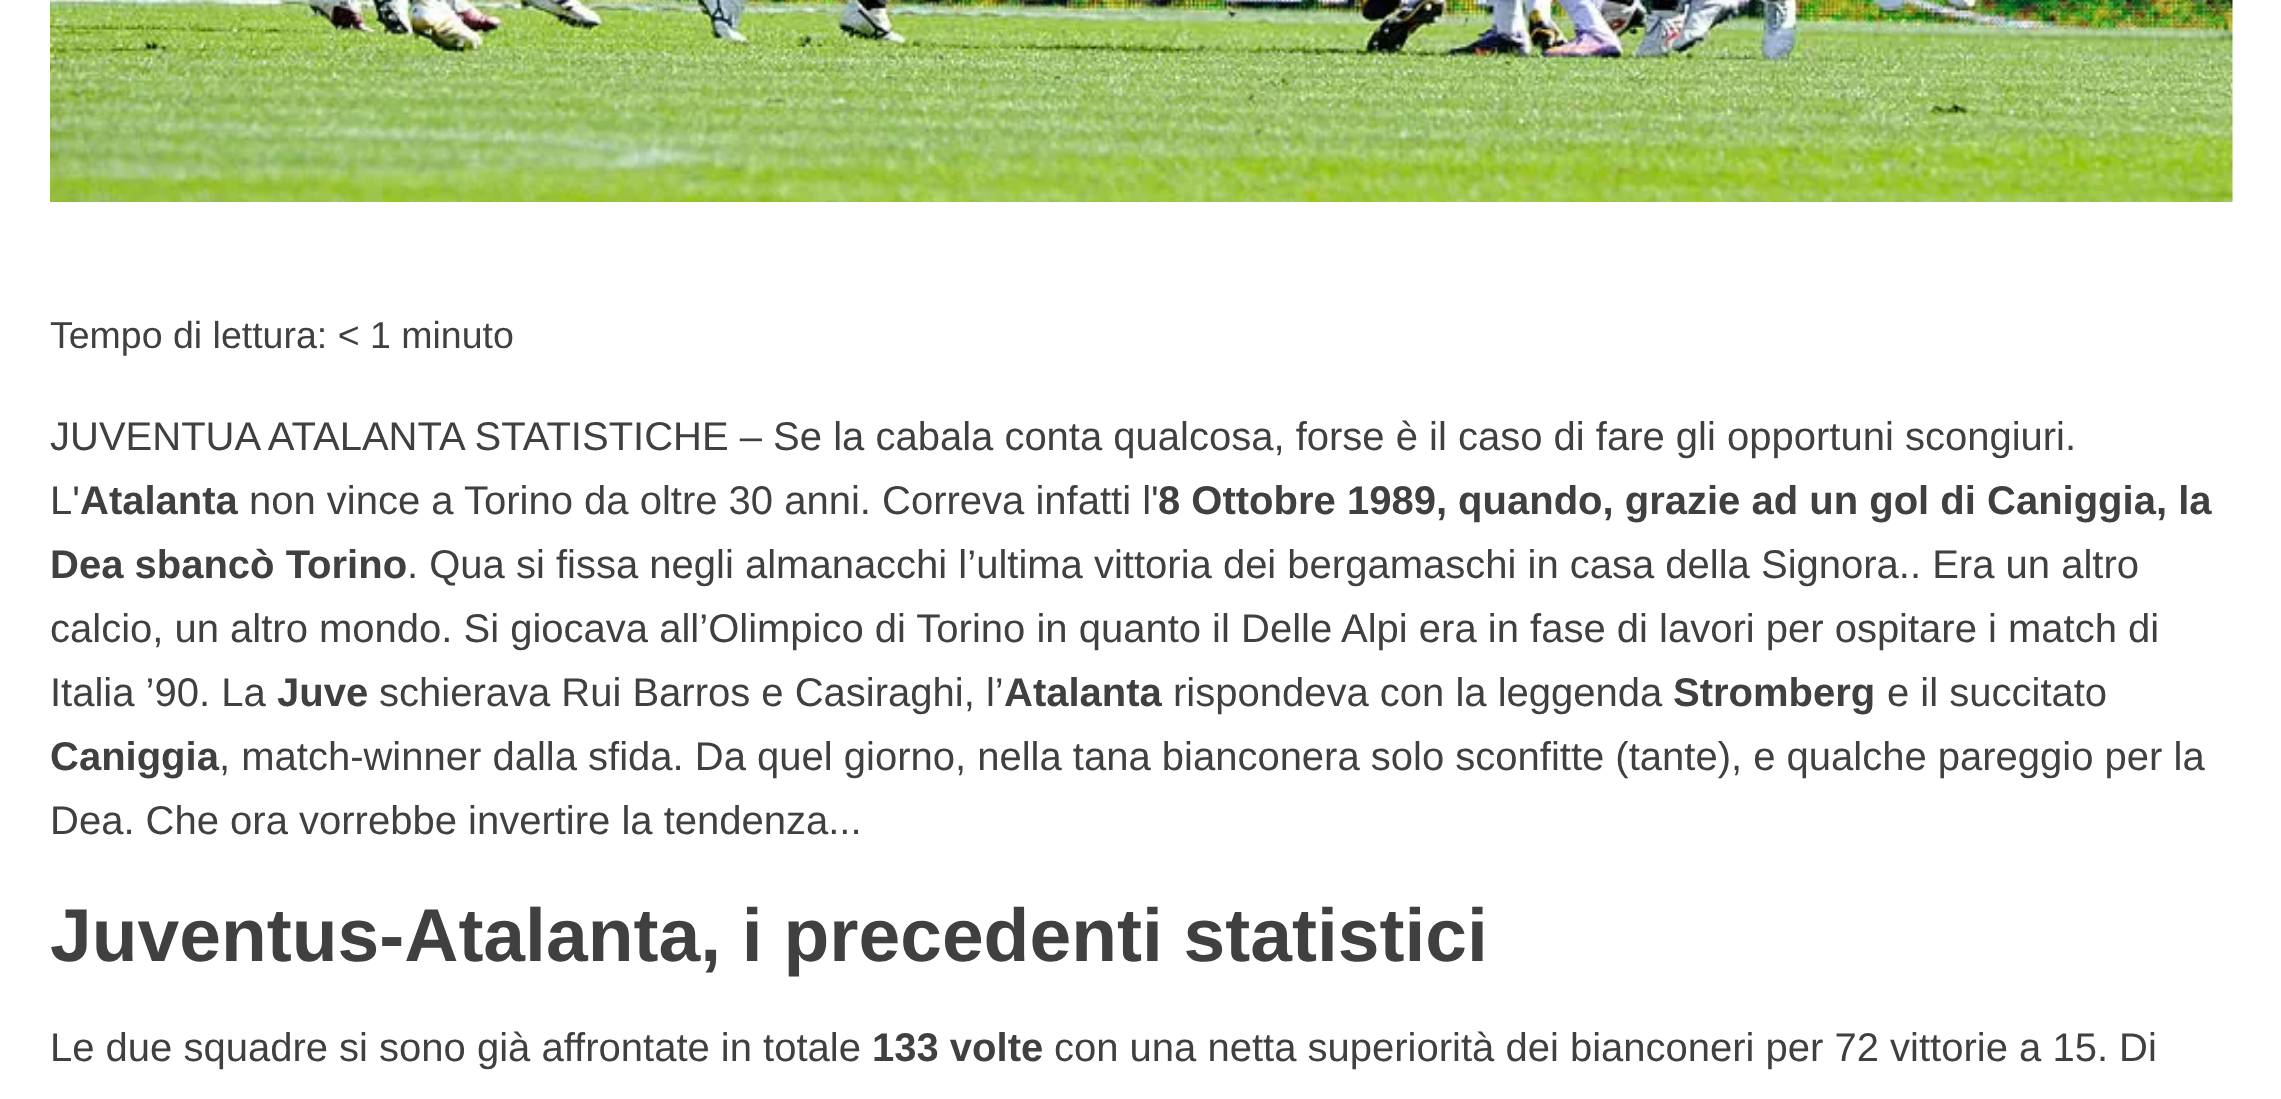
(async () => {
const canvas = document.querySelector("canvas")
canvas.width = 2281
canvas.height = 1099
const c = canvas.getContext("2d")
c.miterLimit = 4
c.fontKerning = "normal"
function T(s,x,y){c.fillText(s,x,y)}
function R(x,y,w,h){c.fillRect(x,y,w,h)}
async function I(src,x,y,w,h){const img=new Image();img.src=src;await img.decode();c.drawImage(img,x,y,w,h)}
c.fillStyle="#fff"
R(0,0,2281,1099)
await I("1.png",50,0,2183,202)
c.font="37.5px Liberation Sans"
c.fillStyle="#404040"
T("Tempo di lettura: < 1 minuto",50,348)
c.font="40px Liberation Sans"
T("JUVENTUA ATALANTA STATISTICHE – Se la cabala conta qualcosa, forse è il caso di fare gli opportuni scongiuri.",50,450)
T("L'",50,514)
c.font="bold 40px Liberation Sans"
T("Atalanta",80,514)
c.font="40px Liberation Sans"
T("non vince a Torino da oltre 30 anni. Correva infatti l'",249,514)
c.font="bold 40px Liberation Sans"
T("8 Ottobre 1989, quando, grazie ad un gol di Caniggia, la",1158,514)
T("Dea sbancò Torino",50,578)
c.font="40px Liberation Sans"
T(". Qua si fissa negli almanacchi l’ultima vittoria dei bergamaschi in casa della Signora.. Era un altro",407,578)
T("calcio, un altro mondo. Si giocava all’Olimpico di Torino in quanto il Delle Alpi era in fase di lavori per ospitare i match di",50,642)
T("Italia ’90. La",50,706)
c.font="bold 40px Liberation Sans"
T("Juve",277,706)
c.font="40px Liberation Sans"
T("schierava Rui Barros e Casiraghi, l’",379,706)
c.font="bold 40px Liberation Sans"
T("Atalanta",1004,706)
c.font="40px Liberation Sans"
T("rispondeva con la leggenda",1173,706)
c.font="bold 40px Liberation Sans"
T("Stromberg",1673,706)
c.font="40px Liberation Sans"
T("e il succitato",1887,706)
c.font="bold 40px Liberation Sans"
T("Caniggia",50,770)
c.font="40px Liberation Sans"
T(", match-winner dalla sfida. Da quel giorno, nella tana bianconera solo sconfitte (tante), e qualche pareggio per la",219,770)
T("Dea. Che ora vorrebbe invertire la tendenza...",50,834)
c.font="bold 75px Liberation Sans"
T("Juventus-Atalanta, i precedenti statistici",50,961)
c.font="40px Liberation Sans"
T("Le due squadre si sono già affrontate in totale",50,1061)
c.font="bold 40px Liberation Sans"
T("133 volte",872,1061)
c.font="40px Liberation Sans"
T("con una netta superiorità dei bianconeri per 72 vittorie a 15. Di",1054,1061)
})()
